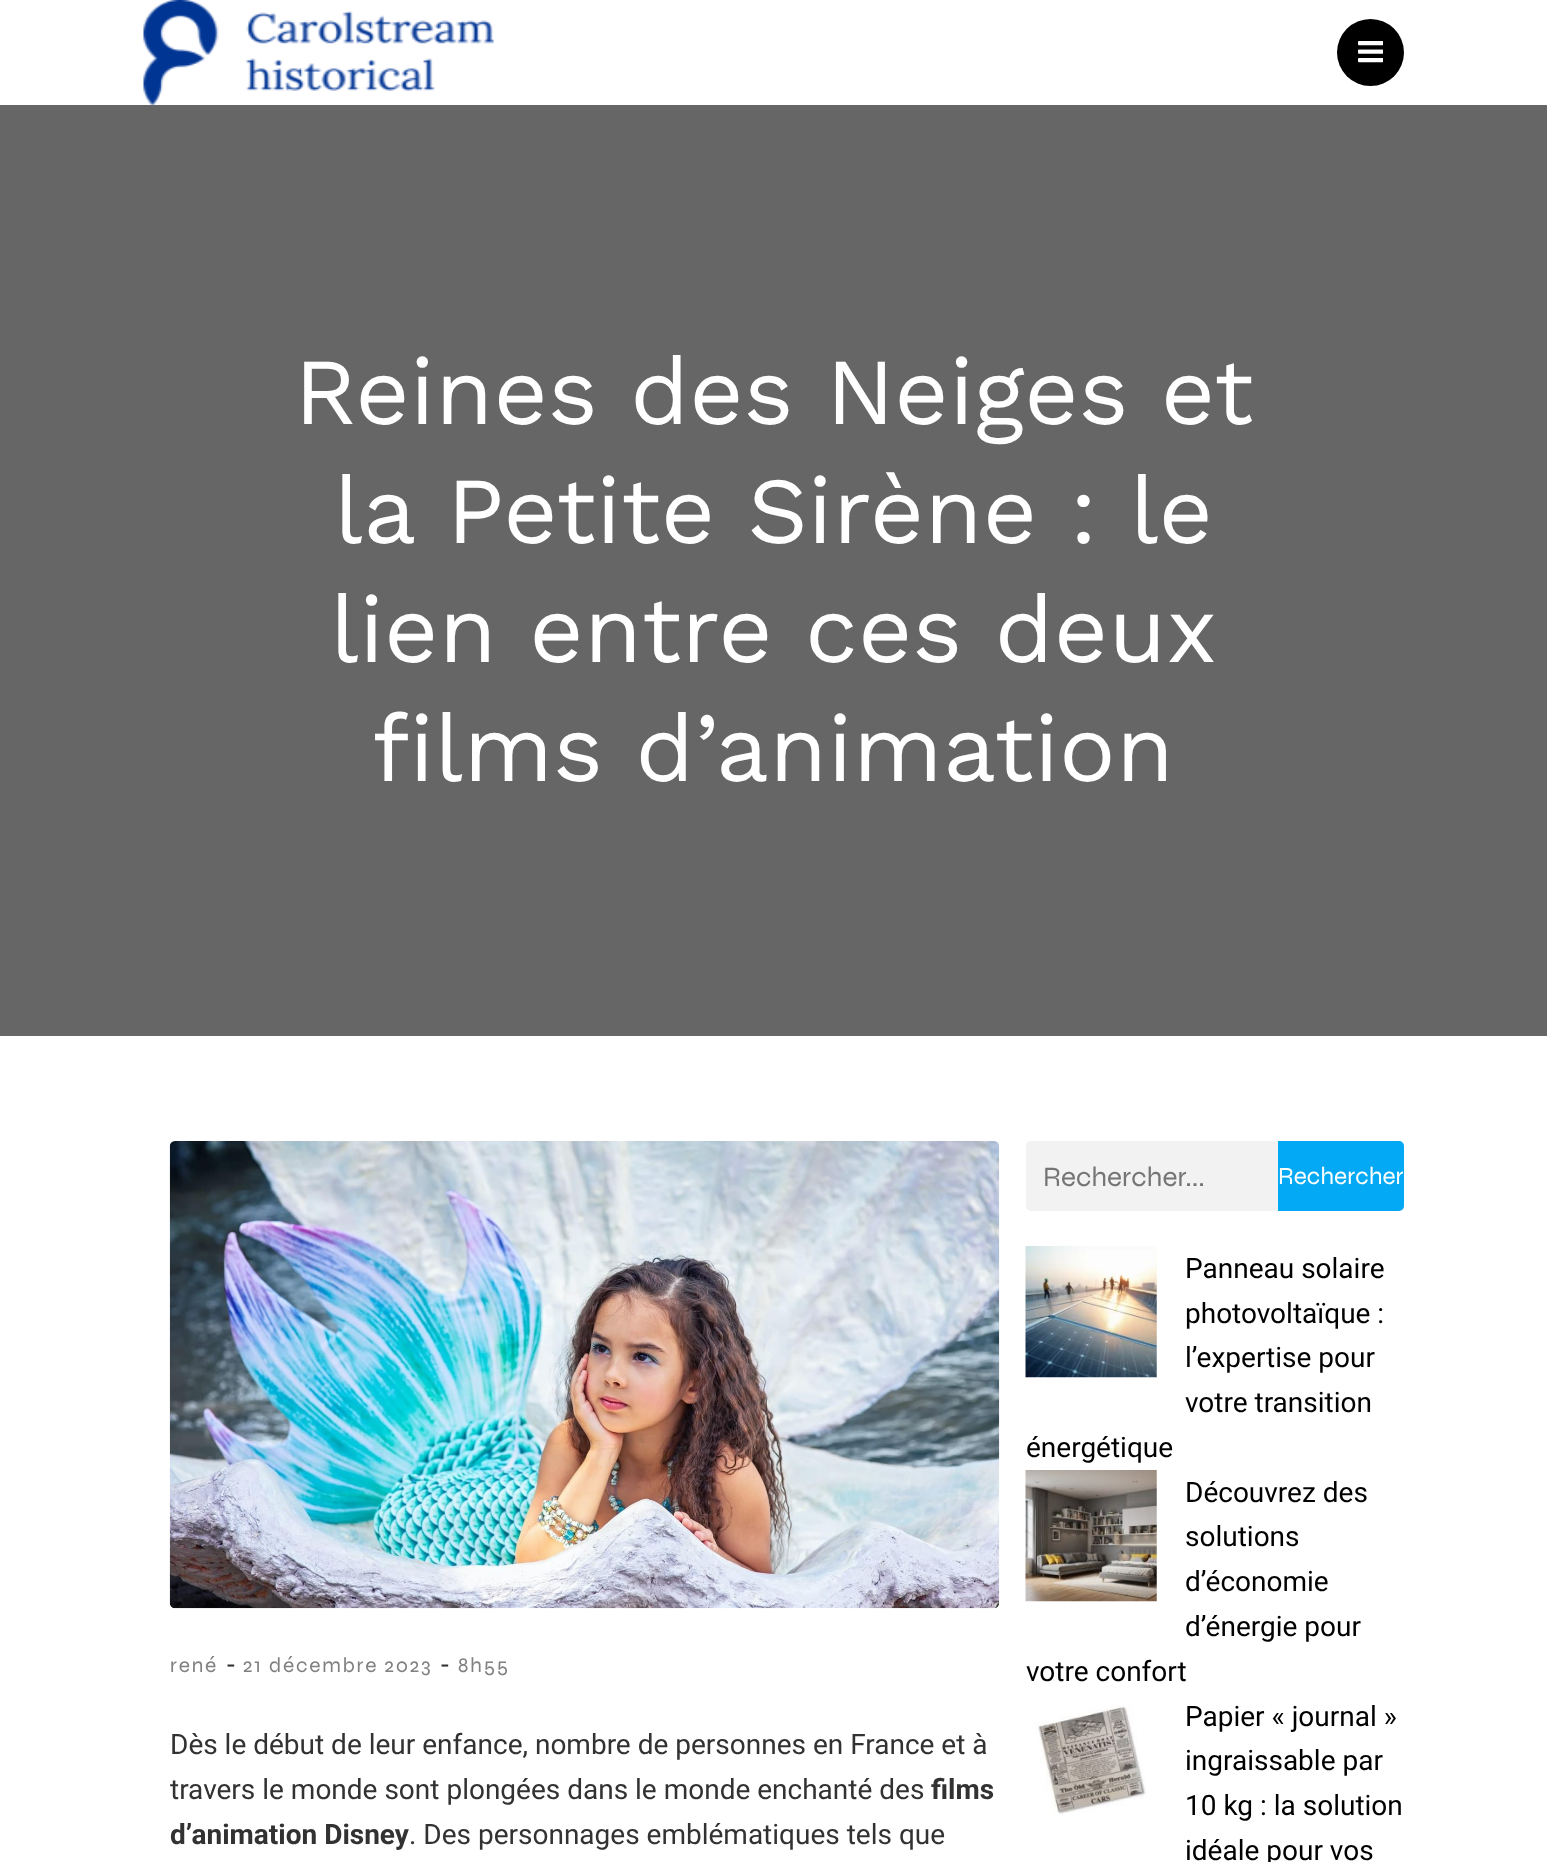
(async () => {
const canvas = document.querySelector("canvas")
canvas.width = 1547
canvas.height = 1862
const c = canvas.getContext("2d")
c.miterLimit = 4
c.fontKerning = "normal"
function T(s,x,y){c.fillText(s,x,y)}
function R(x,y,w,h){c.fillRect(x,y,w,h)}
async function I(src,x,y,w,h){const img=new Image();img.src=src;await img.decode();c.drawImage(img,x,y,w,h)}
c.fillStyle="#fff"
R(0,0,1547,1862)
await I("1.png",143,0,351,105)
c.fillStyle="#000"
c.beginPath()
c.arc(1370.5,52.5,33.5,0,7)
c.fill()
await I("2.png",1358,41,25,22)
c.fillStyle="#666"
R(0,105,1547,931)
c.font="94.5px Work Sans"
c.fillStyle="#fff"
T("Reines des Neiges et",294,424)
T("la Petite Sirène : le",334,543)
T("lien entre ces deux",330,662)
T("films d’animation",372,781)
await I("3.png",169,1141,831,468)
c.letterSpacing="1.75px"
c.font="21px Syne"
c.fillStyle="#808080"
T("rené",170,1672)
c.letterSpacing="0px"
c.font="28px Roboto"
c.fillStyle="#323232"
T("-",227,1674)
c.letterSpacing="1.75px"
c.font="21px Syne"
c.fillStyle="#808080"
T("21 décembre 2023",243,1672)
c.letterSpacing="0px"
c.font="28px Roboto"
c.fillStyle="#323232"
T("-",441,1674)
c.letterSpacing="1.75px"
c.font="21px Syne"
c.fillStyle="#808080"
T("8h55",458,1672)
c.letterSpacing="0px"
c.font="28px Roboto"
c.fillStyle="#323232"
T("Dès le début de leur enfance, nombre de personnes en France et à",170,1754)
T("travers le monde sont plongées dans le monde enchanté des",170,1799)
c.font="bold 28px Roboto"
T("films",931,1799)
T("d’animation Disney",170,1844)
c.font="28px Roboto"
T(". Des personnages emblématiques tels que",409,1844)
c.fillStyle="#f2f2f2"
c.beginPath()
c.roundRect(1026,1141,252,70,[5,0,0,5])
c.fill()
c.font="28px Syne"
c.fillStyle="#757575"
T("Rechercher...",1043,1186)
c.fillStyle="#03a9f4"
c.beginPath()
c.roundRect(1278,1141,126,70,[0,5,5,0])
c.fill()
c.font="24.5px Syne"
c.fillStyle="#fff"
T("Rechercher",1278,1184)
await I("4.png",1025,1246,132,132)
c.font="28px Roboto"
c.fillStyle="#000"
T("Panneau solaire",1185,1278)
T("photovoltaïque :",1185,1323)
T("l’expertise pour",1185,1367)
T("votre transition",1185,1412)
T("énergétique",1026,1457)
await I("5.png",1025,1470,132,132)
T("Découvrez des",1185,1502)
T("solutions",1185,1546)
T("d’économie",1185,1591)
T("d’énergie pour",1185,1636)
T("votre confort",1026,1681)
await I("6.png",1034,1705,112,110)
T("Papier « journal »",1185,1726)
T("ingraissable par",1185,1770)
T("10 kg : la solution",1185,1815)
T("idéale pour vos",1185,1860)
})()
